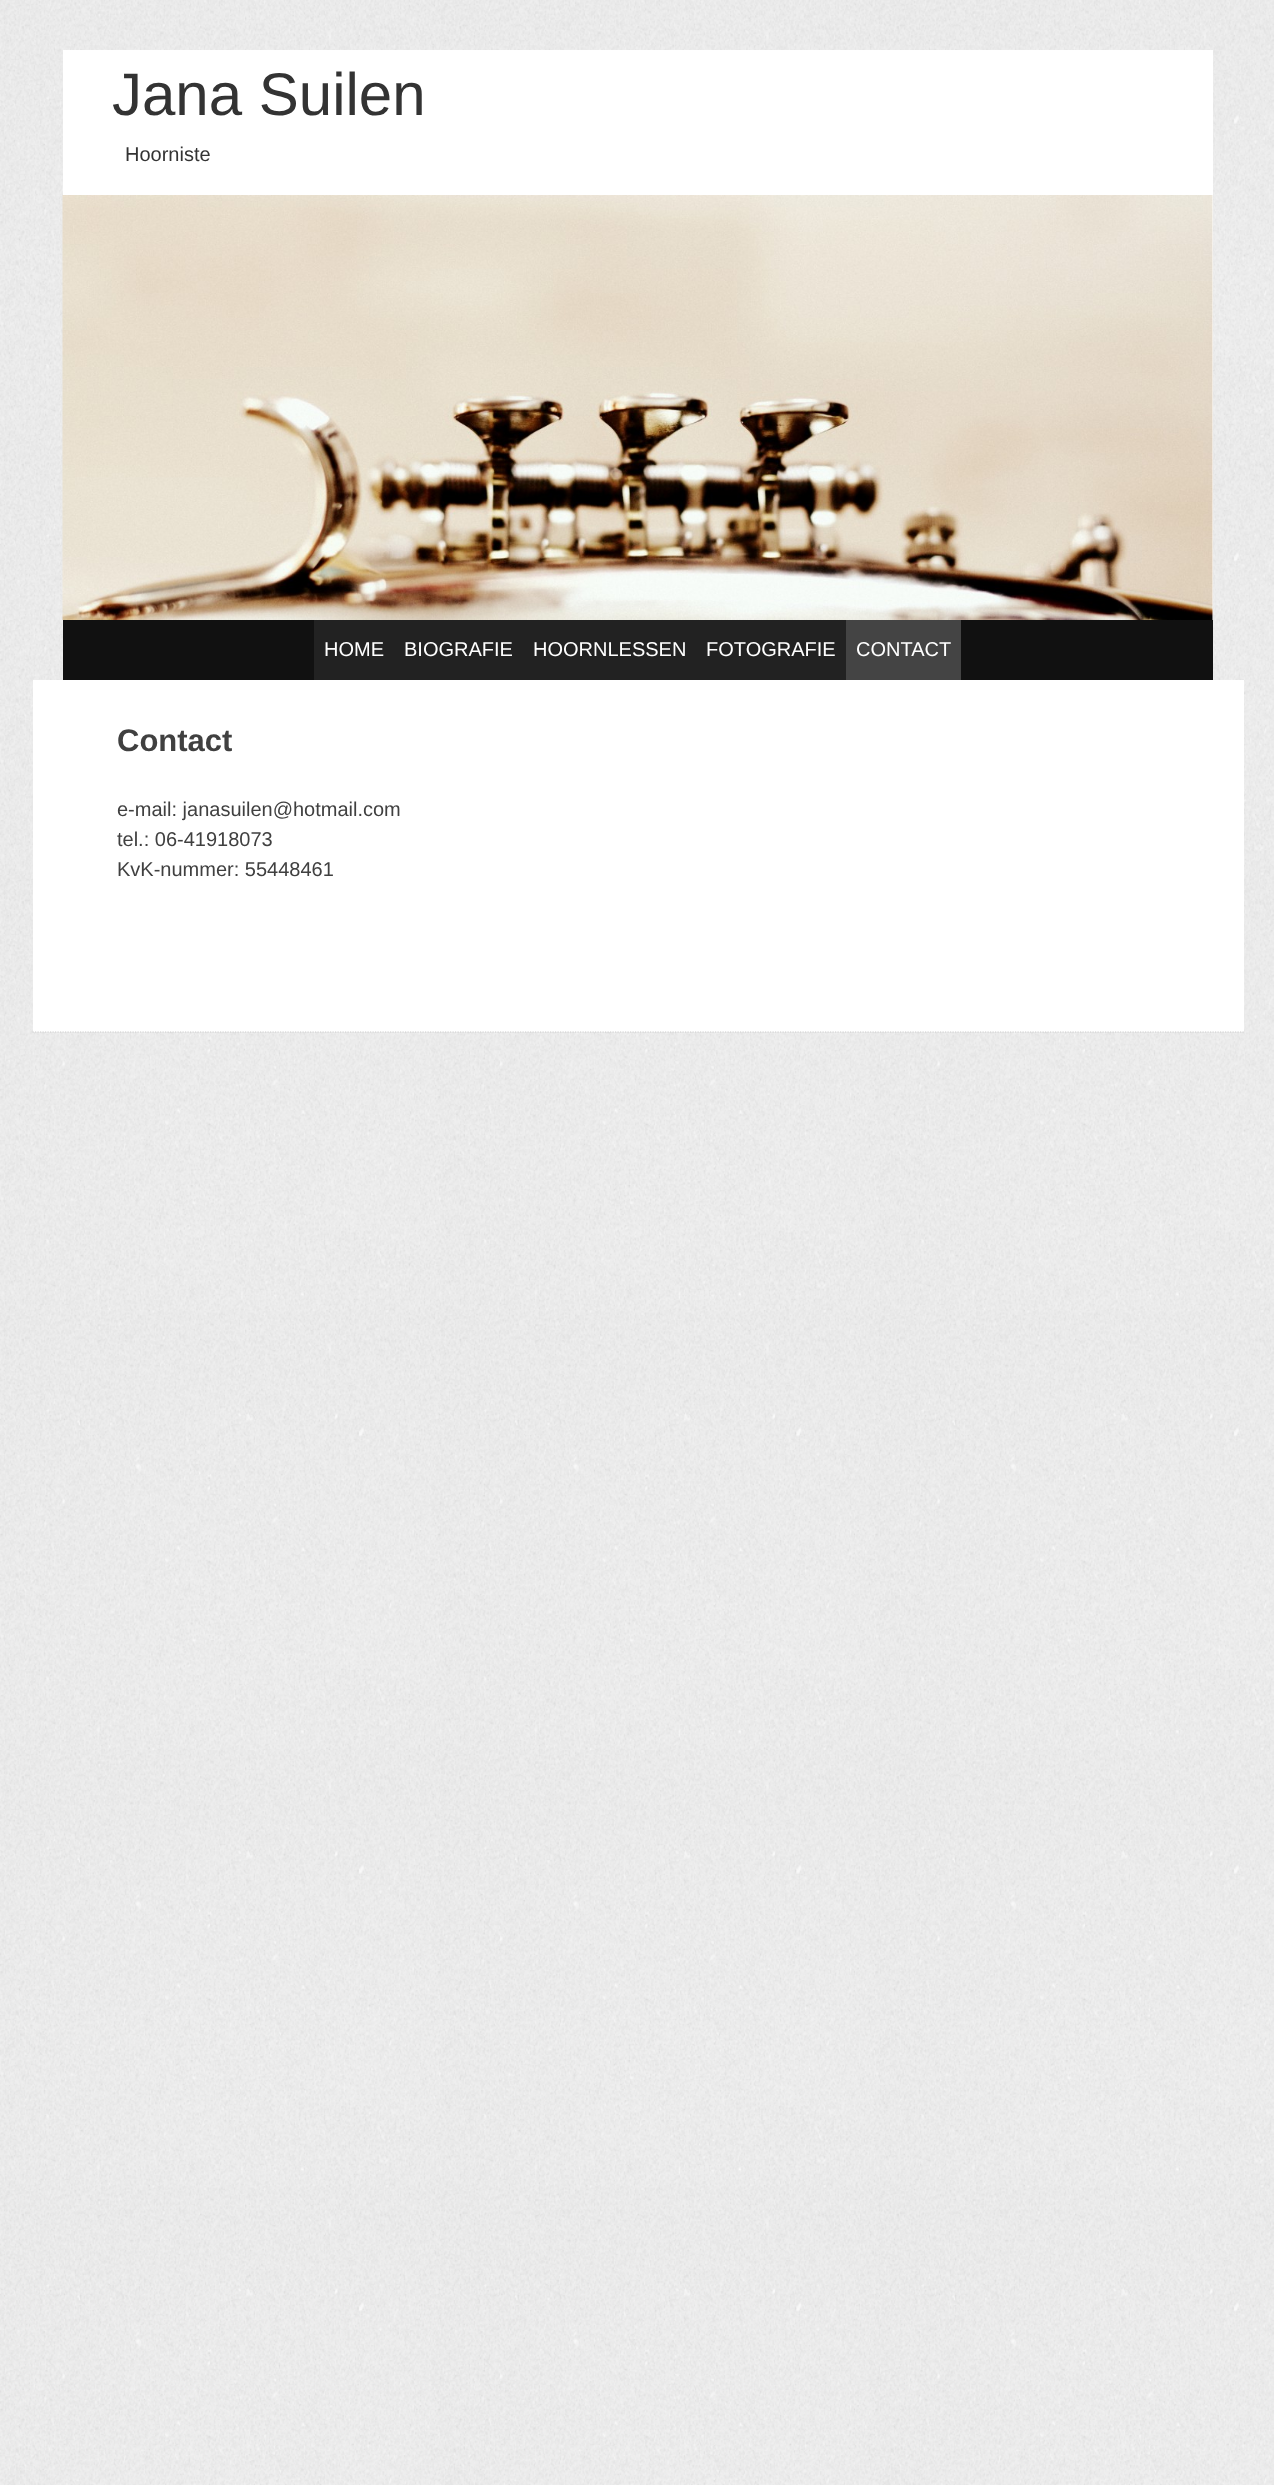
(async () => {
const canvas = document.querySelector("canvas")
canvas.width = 1274
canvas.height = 2485
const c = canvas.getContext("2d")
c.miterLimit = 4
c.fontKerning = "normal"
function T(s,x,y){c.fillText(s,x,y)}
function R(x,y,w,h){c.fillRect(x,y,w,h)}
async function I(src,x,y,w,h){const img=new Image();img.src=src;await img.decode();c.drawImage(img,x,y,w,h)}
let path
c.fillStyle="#fff"
R(0,0,1274,2485)
await I("1.png",0,0,1274,2485)
R(63,50,1150,570)
c.font="60px Liberation Sans"
c.fillStyle="#333"
T("Jana Suilen",112,115)
c.font="20px Liberation Sans"
T("Hoorniste",125,161)
await I("2.png",62,195,1151,425)
c.fillStyle="#111"
R(63,620,1150,60)
c.fillStyle="#222"
R(314,620,532,60)
c.fillStyle="#fff"
T("HOME",324,656)
T("BIOGRAFIE",404,656)
T("HOORNLESSEN",533,656)
T("FOTOGRAFIE",706,656)
c.fillStyle="#444"
R(846,620,115,60)
c.fillStyle="#fff"
T("CONTACT",856,656)
R(33,680,1211,352)
c.font="bold 31px Liberation Sans"
c.fillStyle="#404040"
T("Contact",117,751)
c.font="20px Liberation Sans"
T("e-mail: janasuilen@hotmail.com",117,816)
T("tel.: 06-41918073",117,846)
T("KvK-nummer: 55448461",117,876)
path = new Path2D("M32.5 1032h1211.5")
c.strokeStyle="#ccc"
c.lineWidth=1.2
c.setLineDash([1.25,1.25])
c.stroke(path)
})()
